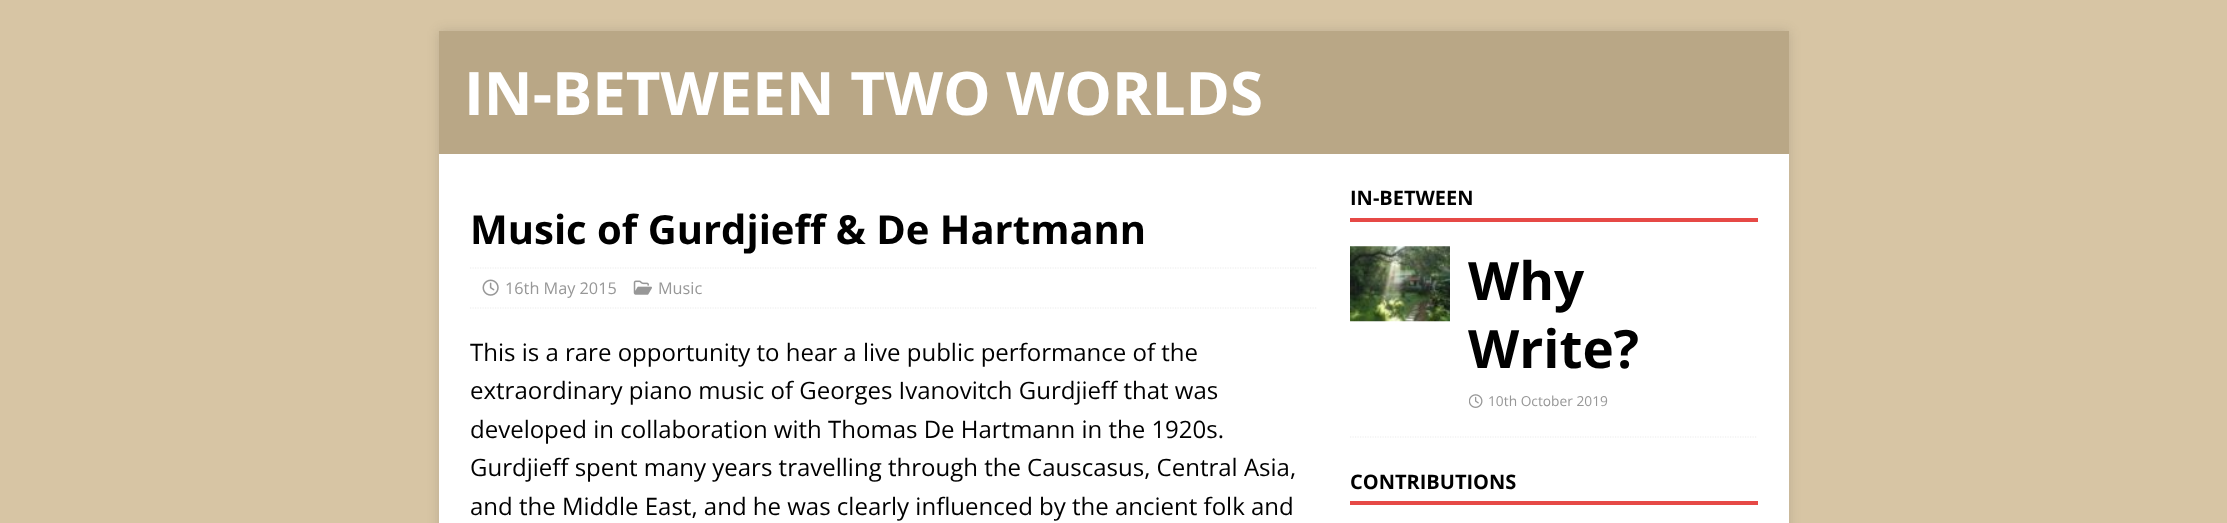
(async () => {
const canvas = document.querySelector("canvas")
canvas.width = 2227
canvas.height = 523
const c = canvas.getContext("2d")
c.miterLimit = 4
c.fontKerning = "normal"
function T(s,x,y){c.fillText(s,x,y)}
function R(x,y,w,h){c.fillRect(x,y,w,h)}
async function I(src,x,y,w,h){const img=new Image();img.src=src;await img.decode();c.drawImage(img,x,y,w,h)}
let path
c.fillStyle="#d7c5a4"
R(0,0,2227,523)
c.fillStyle="#3232322b"
c.filter="blur(6px)"
c.beginPath()
c.rect(439,31,1350,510)
c.fill()
c.filter="none"
c.fillStyle="#b9a786"
R(439,31,1350,123)
c.font="bold 60px Open Sans"
c.fillStyle="#fff"
T("IN-BETWEEN TWO WORLDS",464,115)
R(439,154,1350,369)
c.font="bold 40px Open Sans"
c.fillStyle="#000"
T("Music of Gurdjieff & De Hartmann",470,244)
path = new Path2D("M470 268h847.5")
c.strokeStyle="#ebebeb"
c.lineWidth=1.2
c.setLineDash([1.25,1.25])
c.stroke(path)
path = new Path2D("M470 308h847.5")
c.stroke(path)
await I("1.png",482,279,17,17)
c.font="16.25px Open Sans"
c.fillStyle="#979797"
T("16th May 2015",505,294)
await I("2.png",633,280,19,15)
T("Music",658,294)
c.font="24px Open Sans"
c.fillStyle="#000"
T("This is a rare opportunity to hear a live public performance of the",470,361)
T("extraordinary piano music of Georges Ivanovitch Gurdjieff that was",470,399)
T("developed in collaboration with Thomas De Hartmann in the 1920s.",470,438)
T("Gurdjieff spent many years travelling through the Causcasus, Central Asia,",470,476)
T("and the Middle East, and he was clearly influenced by the ancient folk and",470,515)
c.fillStyle="#e64946"
R(1350,218,408,4)
c.font="bold 20px Open Sans"
c.fillStyle="#000"
T("IN-BETWEEN",1350,205)
path = new Path2D("M1350 437h407.5")
c.stroke(path)
await I("3.png",1350,246,100,76)
c.font="bold 53px Open Sans"
T("Why",1468,300)
T("Write?",1468,368)
await I("4.png",1469,394,14,14)
c.font="13.75px Open Sans"
c.fillStyle="#979797"
T("10th October 2019",1488,406)
c.fillStyle="#e64946"
R(1350,501,408,4)
c.font="bold 20px Open Sans"
c.fillStyle="#000"
T("CONTRIBUTIONS",1350,489)
})()
